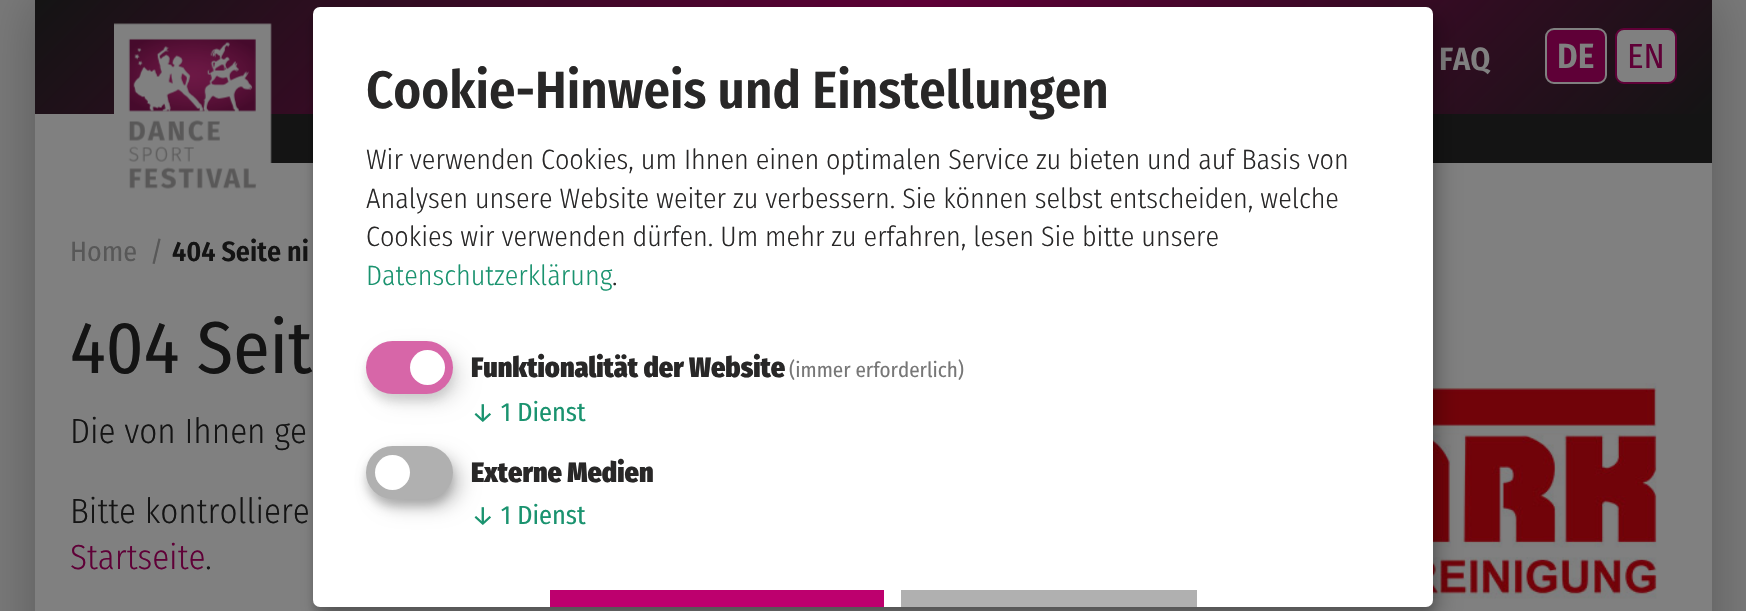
void draw(SkCanvas* c) {
SkPaint p;
p.setAntiAlias(true);
auto F=[&](const char* family, int weight, float size, bool italic = false){SkFontStyle style(weight, SkFontStyle::kNormal_Width,italic ? SkFontStyle::kItalic_Slant : SkFontStyle::kUpright_Slant);SkFont result(fontMgr->matchFamilyStyle(family, style), size);result.setSubpixel(true);return result;};
auto T=[&](const char* s, float x, float y, const SkFont& font){c->drawString(s, x, y, font, p);};
auto R=[&](float x, float y, float w, float h){c->drawRect(SkRect::MakeXYWH(x, y, w, h), p);};
auto Q=[&](float x, float y, float w, float h, float radius){c->drawRoundRect(SkRect::MakeXYWH(x, y, w, h), radius, radius, p);};
auto I=[&](const char* path, float x, float y, float w, float h){auto image = SkImages::DeferredFromEncodedData(SkData::MakeFromFileName(path));c->drawImageRect(image, SkRect::MakeXYWH(x, y, w, h), SkSamplingOptions());};
c->clear(0xff797979);
p.setColor(0x40000000);
p.setMaskFilter(SkMaskFilter::MakeBlur(kNormal_SkBlurStyle, 26));
c->drawRect(SkRect::MakeXYWH(35,0,1677,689),p);
p.setMaskFilter(nullptr);
{
const SkColor colors[] = {0xff141414,0xff5f0037,0xff141414};
const float stops[] = {0,.5,1};
const SkPoint ends[] = {{426,-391}, {1321,504}};
p.setShader(SkGradientShader::MakeLinear(ends, colors, stops, 3, SkTileMode::kClamp));
p.setAlpha(255);
}
R(35,0,1677,114);
p.setShader(nullptr);
p.setColor(0xff808080);
R(35,114,1677,497);
p.setColor(0xff141414);
R(270,114,1442,49);
I("1.png",114,23,158,166);
auto f1 = F("Fira Sans Condensed",600,32);
p.setColor(0xff808080);
T("FAQ",1439,70,f1);
p.setColor(0xff5f0037);
c->drawRoundRect(SkRect::MakeXYWH(1546,29,60,54),8,8,p);
p.setStroke(true);
p.setStrokeWidth(2);
p.setColor(0xff808080);
c->drawRoundRect(SkRect::MakeXYWH(1546,29,60,54),8,8,p);
auto f2 = F("Fira Sans Condensed",600,35);
p.setStroke(false);
T("DE",1557,68,f2);
c->drawRoundRect(SkRect::MakeXYWH(1616,29,60,54),8,8,p);
p.setStroke(true);
p.setColor(0xff5f0037);
c->drawRoundRect(SkRect::MakeXYWH(1616,29,60,54),8,8,p);
auto f3 = F("Fira Sans Condensed",400,35);
p.setStroke(false);
T("EN",1627,68,f3);
auto f4 = F("Fira Sans Condensed",400,28);
p.setColor(0xff585858);
T("Home",70,261,f4);
T("/",150,261,f4);
auto f5 = F("Fira Sans Condensed",600,28);
p.setColor(0xff141414);
T("404 Seite ni",172,261,f5);
auto f6 = F("Fira Sans Condensed",400,73.5);
T("404 Seit",70,373,f6);
auto f7 = F("Fira Sans Condensed",300,35);
T("Die von Ihnen ge",70,443,f7);
T("Bitte kontrolliere",70,523,f7);
p.setColor(0xff5f0037);
T("Startseite",70,569,f7);
p.setColor(0xff141414);
T(".",205,569,f7);
I("2.png",1433,383,224,216);
p.setColor(0x30000000);
p.setMaskFilter(SkMaskFilter::MakeBlur(kNormal_SkBlurStyle, 9));
c->drawRoundRect(SkRect::MakeXYWH(322,16,1120,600),7,7,p);
p.setMaskFilter(nullptr);
p.setColor(0x33000000);
p.setMaskFilter(SkMaskFilter::MakeBlur(kNormal_SkBlurStyle, 5));
c->drawRoundRect(SkRect::MakeXYWH(313,14,1120,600),7,7,p);
p.setMaskFilter(nullptr);
p.setColor(0xffffffff);
Q(313,7,1120,600,7);
auto f8 = F("Fira Sans Condensed",600,52.5);
p.setColor(0xff282727);
T("Cookie-Hinweis und Einstellungen",366,108,f8);
auto f9 = F("Fira Sans Condensed",300,28);
T("Wir verwenden Cookies, um Ihnen einen optimalen Service zu bieten und auf Basis von",366,169,f9);
T("Analysen unsere Website weiter zu verbessern. Sie können selbst entscheiden, welche",366,208,f9);
T("Cookies wir verwenden dürfen. Um mehr zu erfahren, lesen Sie bitte unsere",366,246,f9);
p.setColor(0xff1a936f);
T("Datenschutzerklärung",366,285,f9);
p.setColor(0xff282727);
T(".",612,285,f9);
p.setColor(0x1c000000);
p.setMaskFilter(SkMaskFilter::MakeBlur(kNormal_SkBlurStyle, 9));
c->drawRoundRect(SkRect::MakeXYWH(375,350,87,53),26.5,26.5,p);
p.setMaskFilter(nullptr);
p.setColor(0x33666666);
p.setMaskFilter(SkMaskFilter::MakeBlur(kNormal_SkBlurStyle, 5));
c->drawRoundRect(SkRect::MakeXYWH(366,348,87,53),26.5,26.5,p);
p.setMaskFilter(nullptr);
p.setColor(0xffd766a8);
Q(366,341,87,53,26.5);
p.setColor(0xffffffff);
c->drawCircle(427.5,367.5,17.5,p);
auto f10 = F("Fira Sans Condensed",900,28);
p.setColor(0xff282727);
T("Funktionalität der Website",471,377,f10);
auto f11 = F("Fira Sans Condensed",400,21);
p.setColor(0xff777777);
T("(immer erforderlich)",789,377,f11);
auto f12 = F("Fira Sans Condensed",400,26.25);
p.setColor(0xff1a936f);
T("↓ 1 Dienst",471,421,f12);
p.setColor(0x30000000);
p.setMaskFilter(SkMaskFilter::MakeBlur(kNormal_SkBlurStyle, 9));
c->drawRoundRect(SkRect::MakeXYWH(375,455,87,53),26.5,26.5,p);
p.setMaskFilter(nullptr);
p.setColor(0x33000000);
p.setMaskFilter(SkMaskFilter::MakeBlur(kNormal_SkBlurStyle, 5));
c->drawRoundRect(SkRect::MakeXYWH(366,453,87,53),26.5,26.5,p);
p.setMaskFilter(nullptr);
p.setColor(0xffb0b0b0);
Q(366,446,87,53,26.5);
p.setColor(0xffffffff);
c->drawCircle(392.5,472.5,17.5,p);
p.setColor(0xff282727);
T("Externe Medien",471,482,f10);
p.setColor(0xff1a936f);
T("↓ 1 Dienst",471,524,f12);
p.setColor(0xffbd006e);
R(550,590,334,17);
p.setColor(0xffb0b0b0);
R(901,590,296,17);
}
